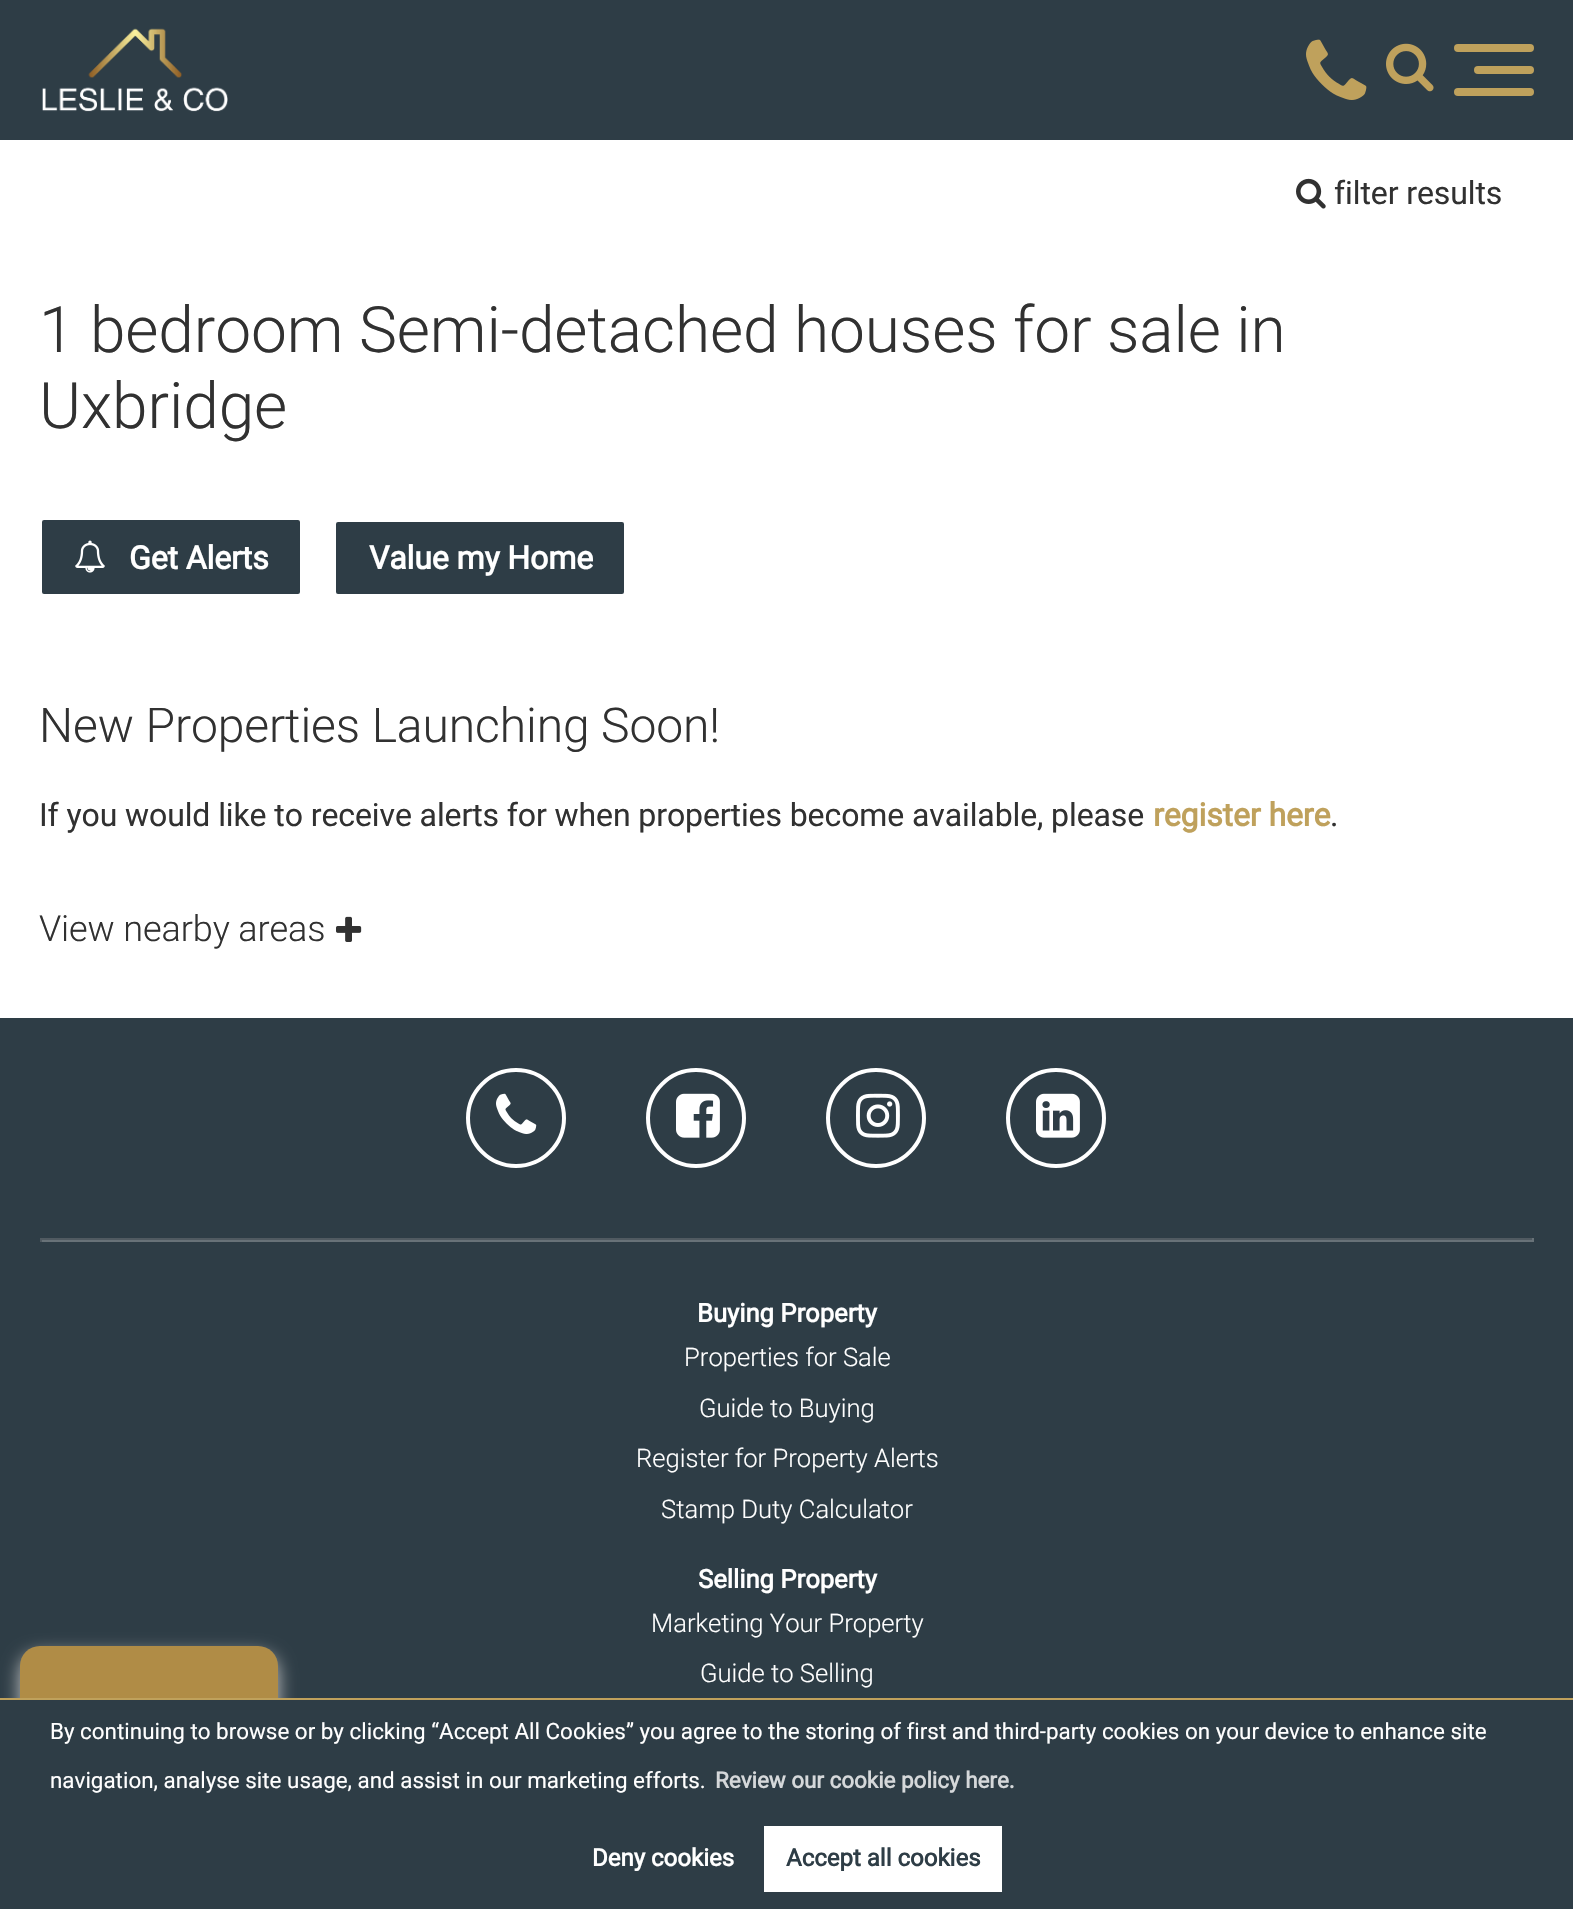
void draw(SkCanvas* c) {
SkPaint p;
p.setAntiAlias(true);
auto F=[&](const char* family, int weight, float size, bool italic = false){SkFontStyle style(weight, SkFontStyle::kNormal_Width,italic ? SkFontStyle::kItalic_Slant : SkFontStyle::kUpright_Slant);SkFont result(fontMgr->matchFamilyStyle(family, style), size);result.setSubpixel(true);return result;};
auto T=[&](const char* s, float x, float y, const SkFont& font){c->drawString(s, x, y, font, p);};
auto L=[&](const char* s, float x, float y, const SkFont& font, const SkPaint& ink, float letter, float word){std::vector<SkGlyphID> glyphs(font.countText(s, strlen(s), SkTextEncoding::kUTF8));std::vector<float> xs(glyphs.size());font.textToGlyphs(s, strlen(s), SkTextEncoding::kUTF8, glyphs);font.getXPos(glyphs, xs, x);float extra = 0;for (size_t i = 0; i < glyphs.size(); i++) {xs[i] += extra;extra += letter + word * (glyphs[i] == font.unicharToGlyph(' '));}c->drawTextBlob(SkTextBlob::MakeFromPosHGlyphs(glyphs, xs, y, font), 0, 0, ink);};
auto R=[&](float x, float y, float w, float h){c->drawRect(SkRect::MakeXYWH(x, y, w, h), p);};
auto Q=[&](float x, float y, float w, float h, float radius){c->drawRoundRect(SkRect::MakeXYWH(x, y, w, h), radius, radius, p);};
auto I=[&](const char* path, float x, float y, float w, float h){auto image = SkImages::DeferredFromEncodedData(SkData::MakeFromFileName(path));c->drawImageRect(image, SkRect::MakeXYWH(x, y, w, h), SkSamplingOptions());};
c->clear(0xffffffff);
p.setColor(0xff2e3d46);
R(0,0,1573,140);
I("1.png",42,28,186,84);
I("2.png",1306,39,61,61);
I("3.png",1386,43,48,49);
p.setColor(0xffbfa15c);
Q(1474,66,60,8,4);
Q(1454,44,80,8,4);
Q(1454,88,80,8,4);
I("4.png",1296,178,30,31);
auto f1 = F("Roboto",400,32);
p.setColor(0xff313131);
L("filter results",1334,204,f1,p,-.1,0);
auto f2 = F("Roboto",300,64);
L("1 bedroom Semi-detached houses for sale in",39,352,f2,p,-.1,0);
L("Uxbridge",39,428,f2,p,-.1,0);
p.setColor(0xff2e3d46);
c->drawRoundRect(SkRect::MakeXYWH(41,519,260,76),3,3,p);
p.setStroke(true);
p.setStrokeWidth(2);
p.setColor(0xffffffff);
c->drawRoundRect(SkRect::MakeXYWH(41,519,260,76),3,3,p);
I("5.png",75,540,30,33);
auto f3 = F("Roboto",700,32);
p.setStroke(false);
L("Get Alerts",129,569,f3,p,-.1,0);
p.setColor(0xff2e3d46);
c->drawRoundRect(SkRect::MakeXYWH(335,521,290,74),3,3,p);
p.setStroke(true);
p.setColor(0xffffffff);
c->drawRoundRect(SkRect::MakeXYWH(335,521,290,74),3,3,p);
p.setStroke(false);
L("Value my Home",369,569,f3,p,-.1,0);
auto f4 = F("Roboto",300,48);
p.setColor(0xff313131);
L("New Properties Launching Soon!",39,742,f4,p,-.1,0);
L("If you would like to receive alerts for when properties become available, please",39,826,f1,p,-.1,0);
p.setColor(0xffbfa15c);
L("register here",1153,826,f3,p,-.1,0);
p.setColor(0xff313131);
L(".",1330,826,f1,p,-.1,0);
auto f5 = F("Roboto",300,36);
L("View nearby areas",39,941,f5,p,-.1,0);
I("6.png",336,916,26,26);
p.setColor(0xff2e3d46);
R(0,1018,1573,680);
p.setStroke(true);
p.setStrokeWidth(4);
p.setColor(0xffffffff);
c->drawCircle(516,1118,48,p);
I("7.png",496,1093,41,41);
c->drawCircle(696,1118,48,p);
I("8.png",676,1093,44,45);
c->drawCircle(876,1118,48,p);
I("9.png",856,1093,44,45);
c->drawCircle(1056,1118,48,p);
I("10.png",1036,1093,44,45);
p.setStroke(false);
p.setColor(0xff505a61);
R(40,1238,1494,2);
p.setColor(0xff687278);
R(1532,1238,2,4);
R(40,1240,1494,2);
p.setColor(0xff505a61);
R(40,1238,2,4);
auto f6 = F("Roboto",700,25.6);
p.setColor(0xffffffff);
T("Buying Property",697,1322,f6);
auto f7 = F("Roboto",300,25.6);
T("Properties for Sale",684,1366,f7);
T("Guide to Buying",699,1417,f7);
T("Register for Property Alerts",636,1467,f7);
T("Stamp Duty Calculator",661,1518,f7);
T("Selling Property",698,1588,f6);
T("Marketing Your Property",651,1632,f7);
T("Guide to Selling",700,1682,f7);
p.setColor(0xffc4c4c4);
p.setMaskFilter(SkMaskFilter::MakeBlur(kNormal_SkBlurStyle, 9));
c->drawRoundRect(SkRect::MakeXYWH(20,1654,258,244),20,20,p);
p.setMaskFilter(nullptr);
p.setColor(0xffb08c46);
Q(20,1646,258,244,20);
p.setColor(0xff2e3d46);
R(0,1700,1573,209);
p.setColor(0xffbfa15c);
R(0,1698,1573,2);
auto f8 = F("Roboto",400,22.4);
p.setColor(0xffffffff);
T("By continuing to browse or by clicking “Accept All Cookies” you agree to the storing of first and third-party cookies on your device to enhance site",50,1739,f8);
T("navigation, analyse site usage, and assist in our marketing efforts.",50,1788,f8);
auto f9 = F("Roboto",700,22.4);
p.setColor(0xffd5d8da);
T("Review our cookie policy here.",715,1788,f9);
auto f10 = F("Roboto",700,24);
p.setColor(0xffffffff);
T("Deny cookies",592,1866,f10);
R(764,1826,238,66);
p.setColor(0xff2e3d46);
T("Accept all cookies",786,1866,f10);
}
